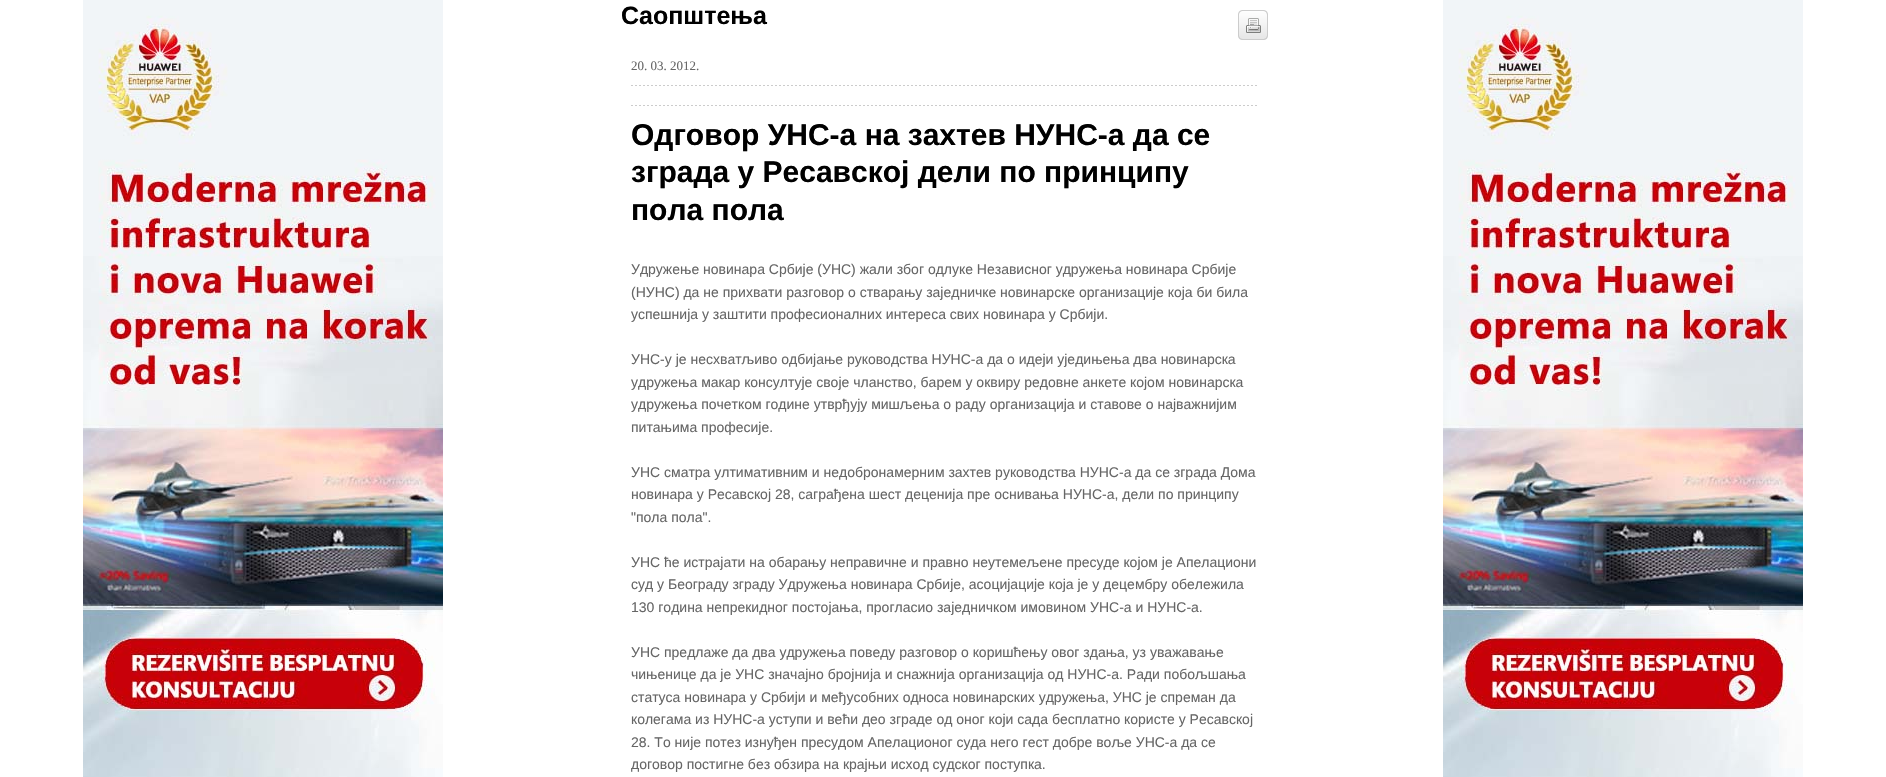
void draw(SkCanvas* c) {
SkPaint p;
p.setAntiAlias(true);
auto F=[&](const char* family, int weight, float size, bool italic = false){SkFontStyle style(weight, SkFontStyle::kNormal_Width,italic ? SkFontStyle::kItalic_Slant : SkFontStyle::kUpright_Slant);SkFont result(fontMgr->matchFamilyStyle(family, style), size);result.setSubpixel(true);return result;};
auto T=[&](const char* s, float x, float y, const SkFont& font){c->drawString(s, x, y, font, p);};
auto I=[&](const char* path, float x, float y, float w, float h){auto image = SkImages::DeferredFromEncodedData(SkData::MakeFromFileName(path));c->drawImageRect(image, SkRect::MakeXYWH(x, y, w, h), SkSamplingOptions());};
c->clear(0xffffffff);
I("1.png",83,0,360,777);
auto f1 = F("Liberation Sans",700,25);
p.setColor(0xff000000);
T("Саопштења",621,24,f1);
I("2.png",1238,10,30,30);
I("3.png",631,85,626,1);
auto f2 = F("Liberation Serif",400,13);
p.setColor(0xff666666);
T("20. 03. 2012.",631,70,f2);
I("3.png",631,105,626,1);
auto f3 = F("Liberation Sans",700,30);
p.setColor(0xff000000);
T("Одговор УНС-а на захтев НУНС-а да се",631,145,f3);
T("зграда у Ресавској дели по принципу",631,182,f3);
T("пола пола",631,220,f3);
auto f4 = F("Liberation Sans",400,14);
p.setColor(0xff666666);
T("Удружење новинара Србије (УНС) жали због одлуке Независног удружења новинара Србије",631,274,f4);
T("(НУНС) да не прихвати разговор о стварању заједничке новинарске организације која би била",631,297,f4);
T("успешнија у заштити професионалних интереса свих новинара у Србији.",631,319,f4);
T("УНС-у је несхватљиво одбијање руководства НУНС-а да о идеји уједињења два новинарска",631,364,f4);
T("удружења макар консултује своје чланство, барем у оквиру редовне анкете којом новинарска",631,387,f4);
T("удружења почетком године утврђују мишљења о раду организација и ставове о најважнијим",631,409,f4);
T("питањима професије.",631,432,f4);
T("УНС сматра ултимативним и недобронамерним захтев руководства НУНС-а да се зграда Дома",631,477,f4);
T("новинара у Ресавској 28, саграђена шест деценија пре оснивања НУНС-а, дели по принципу",631,499,f4);
T("\"пола пола\".",631,522,f4);
T("УНС ће истрајати на обарању неправичне и правно неутемељене пресуде којом је Апелациони",631,567,f4);
T("суд у Београду зграду Удружења новинара Србије, асоцијације која је у децембру обележила",631,589,f4);
T("130 година непрекидног постојања, прогласио заједничком имовином УНС-а и НУНС-а.",631,612,f4);
T("УНС предлаже да два удружења поведу разговор о коришћењу овог здања, уз уважавање",631,657,f4);
T("чињенице да је УНС значајно бројнија и снажнија организација од НУНС-а. Ради побољшања",631,679,f4);
T("статуса новинара у Србији и међусобних односа новинарских удружења, УНС је спреман да",631,702,f4);
T("колегама из НУНС-а уступи и већи део зграде од оног који сада бесплатно користе у Ресавској",631,724,f4);
T("28. То није потез изнуђен пресудом Апелационог суда него гест добре воље УНС-а да се",631,747,f4);
T("договор постигне без обзира на крајњи исход судског поступка.",631,769,f4);
I("1.png",1443,0,360,777);
}
